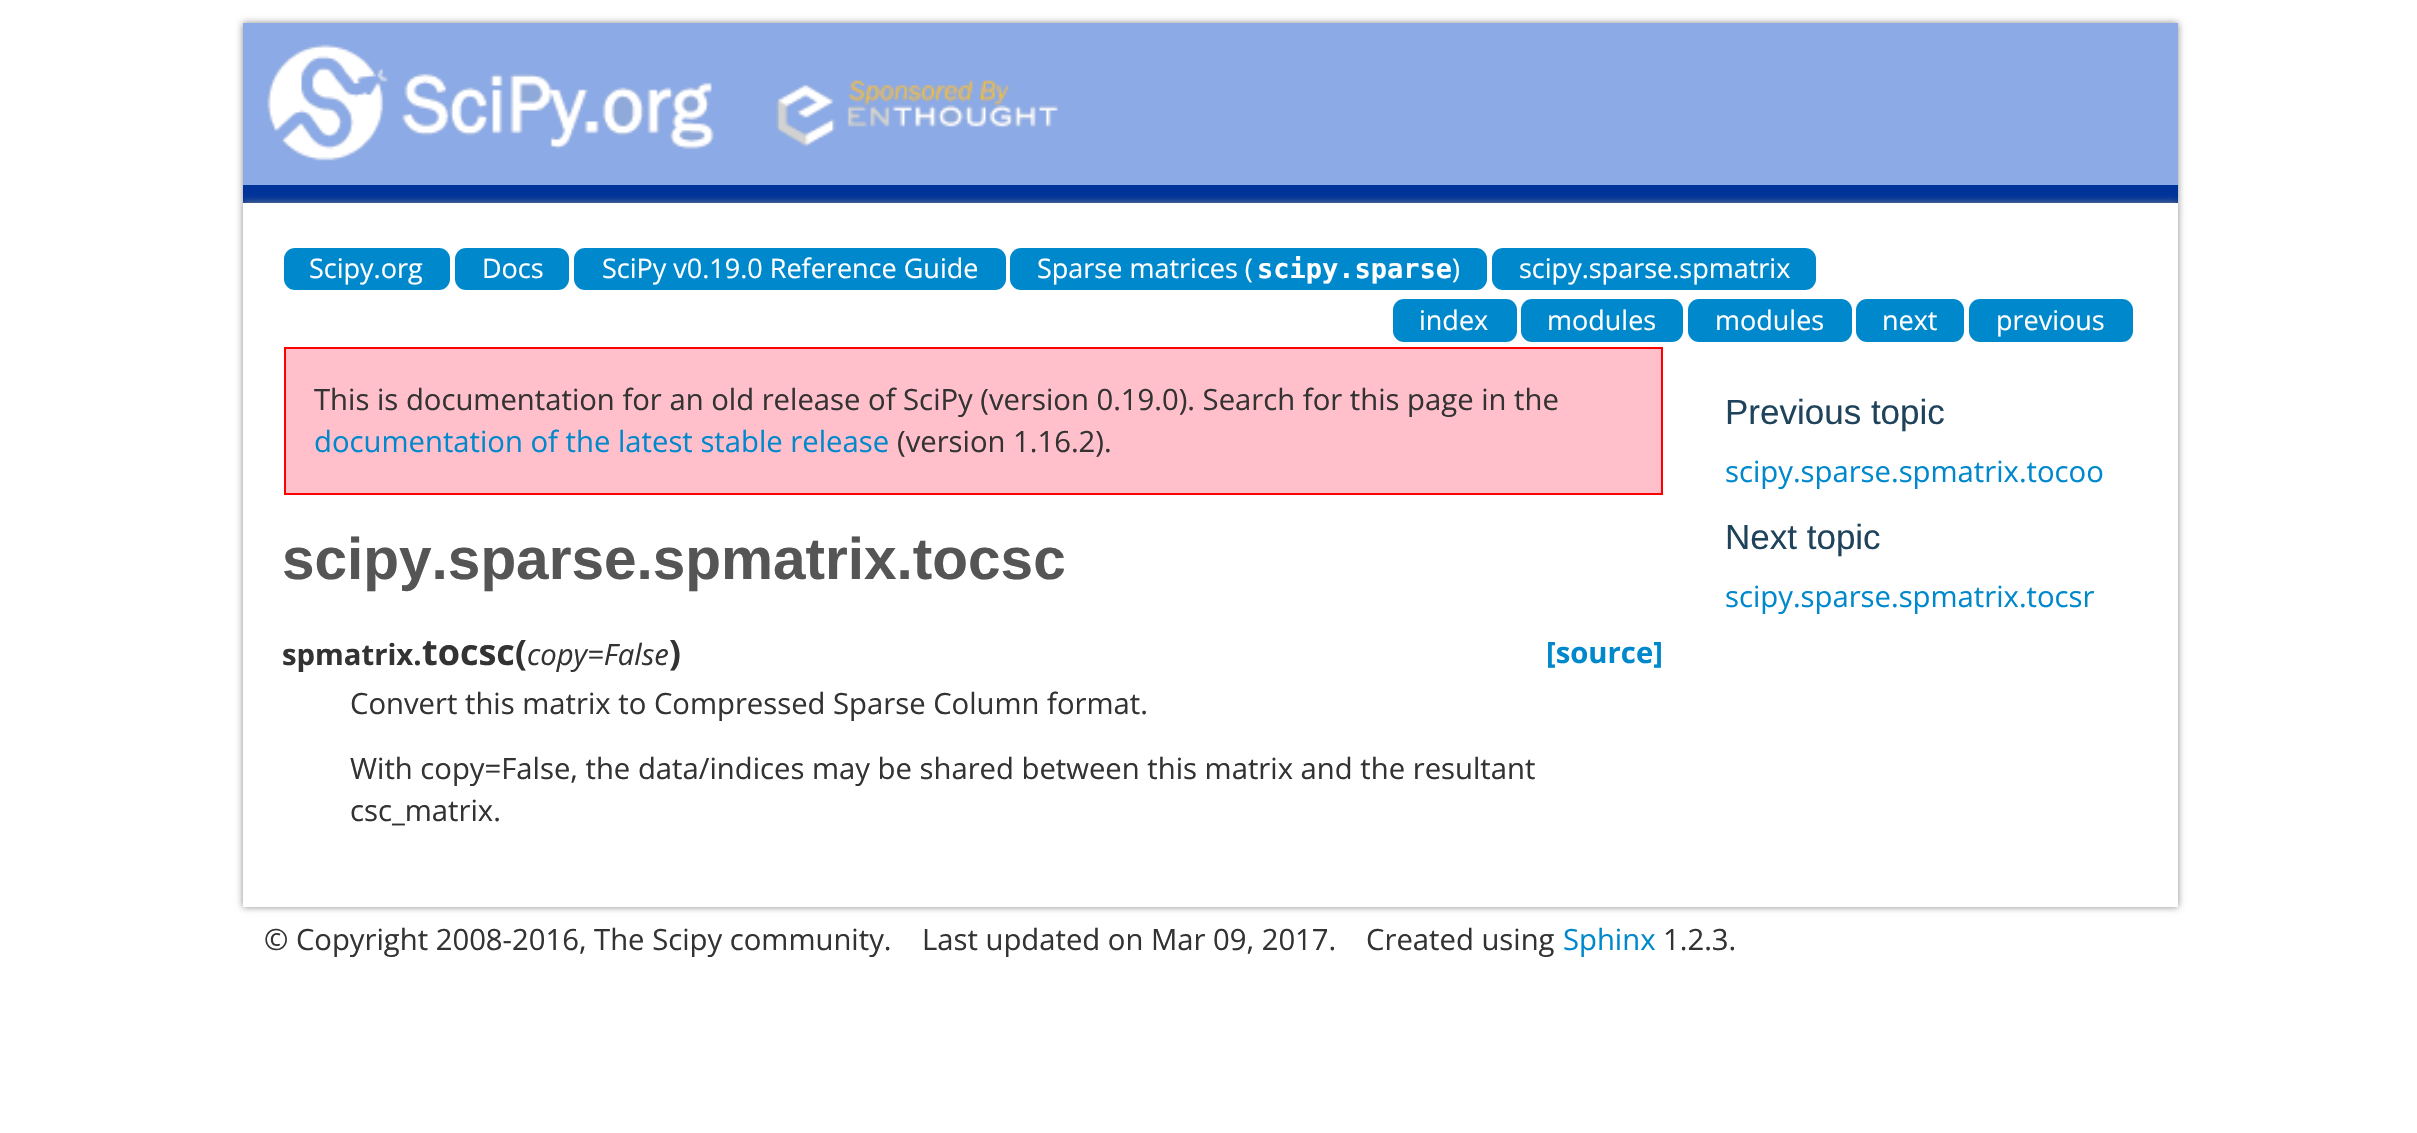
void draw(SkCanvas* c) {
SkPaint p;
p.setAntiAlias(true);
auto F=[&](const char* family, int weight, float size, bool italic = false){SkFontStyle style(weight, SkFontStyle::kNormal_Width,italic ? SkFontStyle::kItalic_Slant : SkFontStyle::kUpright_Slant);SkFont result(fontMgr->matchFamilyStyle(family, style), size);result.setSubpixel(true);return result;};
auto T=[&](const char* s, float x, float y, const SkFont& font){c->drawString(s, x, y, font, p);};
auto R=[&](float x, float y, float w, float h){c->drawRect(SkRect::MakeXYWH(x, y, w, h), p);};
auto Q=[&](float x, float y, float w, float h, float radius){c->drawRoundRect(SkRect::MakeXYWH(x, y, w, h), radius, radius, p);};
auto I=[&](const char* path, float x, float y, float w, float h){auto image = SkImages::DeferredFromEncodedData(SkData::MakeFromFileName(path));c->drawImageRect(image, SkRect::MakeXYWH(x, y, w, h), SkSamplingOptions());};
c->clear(0xffffffff);
p.setColor(0xff888888);
p.setMaskFilter(SkMaskFilter::MakeBlur(kNormal_SkBlurStyle, 3.5));
c->drawRect(SkRect::MakeXYWH(243,23,1935,180),p);
p.setMaskFilter(nullptr);
p.setColor(0xff8caae6);
R(243,23,1935,162);
p.setColor(0xff003399);
R(243,185,1935,18);
I("1.png",267,44,791,117);
p.setColor(0xff888888);
p.setMaskFilter(SkMaskFilter::MakeBlur(kNormal_SkBlurStyle, 3.5));
c->drawRect(SkRect::MakeXYWH(243,203,1935,704),p);
p.setMaskFilter(nullptr);
p.setColor(0xffffffff);
R(243,203,1935,704);
p.setColor(0xff0088cc);
Q(284,248,166,42,11);
auto f1 = F("Open Sans",400,27);
p.setColor(0xffffffff);
T("Scipy.org",309,278,f1);
p.setColor(0xff0088cc);
Q(455,248,114,42,11);
p.setColor(0xffffffff);
T("Docs",482,278,f1);
p.setColor(0xff0088cc);
Q(574,248,432,42,11);
p.setColor(0xffffffff);
T("SciPy v0.19.0 Reference Guide",602,278,f1);
p.setColor(0xff0088cc);
Q(1010,248,477,42,11);
p.setColor(0xffffffff);
T("Sparse matrices (",1037,278,f1);
auto f2 = F("DejaVu Sans Mono",700,27);
T("scipy.sparse",1257,278,f2);
T(")",1452,278,f1);
p.setColor(0xff0088cc);
Q(1492,248,324,42,11);
p.setColor(0xffffffff);
T("scipy.sparse.spmatrix",1519,278,f1);
p.setColor(0xff0088cc);
Q(1393,299,124,43,11);
p.setColor(0xffffffff);
T("index",1419,330,f1);
p.setColor(0xff0088cc);
Q(1521,299,162,43,11);
p.setColor(0xffffffff);
T("modules",1547,330,f1);
p.setColor(0xff0088cc);
Q(1688,299,164,43,11);
p.setColor(0xffffffff);
T("modules",1715,330,f1);
p.setColor(0xff0088cc);
Q(1856,299,108,43,11);
p.setColor(0xffffffff);
T("next",1882,330,f1);
p.setColor(0xff0088cc);
Q(1969,299,164,43,11);
p.setColor(0xffffffff);
T("previous",1996,330,f1);
p.setColor(0xffffc0cb);
c->drawRect(SkRect::MakeXYWH(285,348,1377,146),p);
p.setStroke(true);
p.setStrokeWidth(2);
p.setColor(0xffff0000);
c->drawRect(SkRect::MakeXYWH(285,348,1377,146),p);
auto f3 = F("Open Sans",400,29.25);
p.setStroke(false);
p.setColor(0xff333333);
T("This is documentation for an old release of SciPy (version 0.19.0). Search for this page in the",314,410,f3);
p.setColor(0xff0088cc);
T("documentation of the latest stable release",314,452,f3);
p.setColor(0xff333333);
T("(version 1.16.2).",897,452,f3);
auto f4 = F("Liberation Sans",700,58.5);
p.setColor(0xff555555);
T("scipy.sparse.spmatrix.tocsc",282,579,f4);
auto f5 = F("Open Sans",700,29.25);
p.setColor(0xff333333);
T("spmatrix.",282,665,f5);
auto f6 = F("Open Sans",700,36);
T("tocsc",422,665,f6);
auto f7 = F("Open Sans",700,35);
T("(",515,665,f7);
auto f8 = F("Open Sans",400,29.25,true);
T("copy=False",527,665,f8);
T(")",669,665,f7);
p.setColor(0xff0088cc);
T("[source]",1546,663,f5);
p.setColor(0xff333333);
T("Convert this matrix to Compressed Sparse Column format.",350,714,f3);
T("With copy=False, the data/indices may be shared between this matrix and the resultant",350,779,f3);
T("csc_matrix.",350,821,f3);
auto f9 = F("Liberation Sans",400,35);
p.setColor(0xff20435c);
T("Previous topic",1725,424,f9);
p.setColor(0xff0088cc);
T("scipy.sparse.spmatrix.tocoo",1725,482,f3);
p.setColor(0xff20435c);
T("Next topic",1725,549,f9);
p.setColor(0xff0088cc);
T("scipy.sparse.spmatrix.tocsr",1725,607,f3);
p.setColor(0xff333333);
T("© Copyright 2008-2016, The Scipy community.",264,950,f3);
T("Last updated on Mar 09, 2017.",922,950,f3);
T("Created using",1366,950,f3);
p.setColor(0xff0088cc);
T("Sphinx",1563,950,f3);
p.setColor(0xff333333);
T("1.2.3.",1663,950,f3);
}
